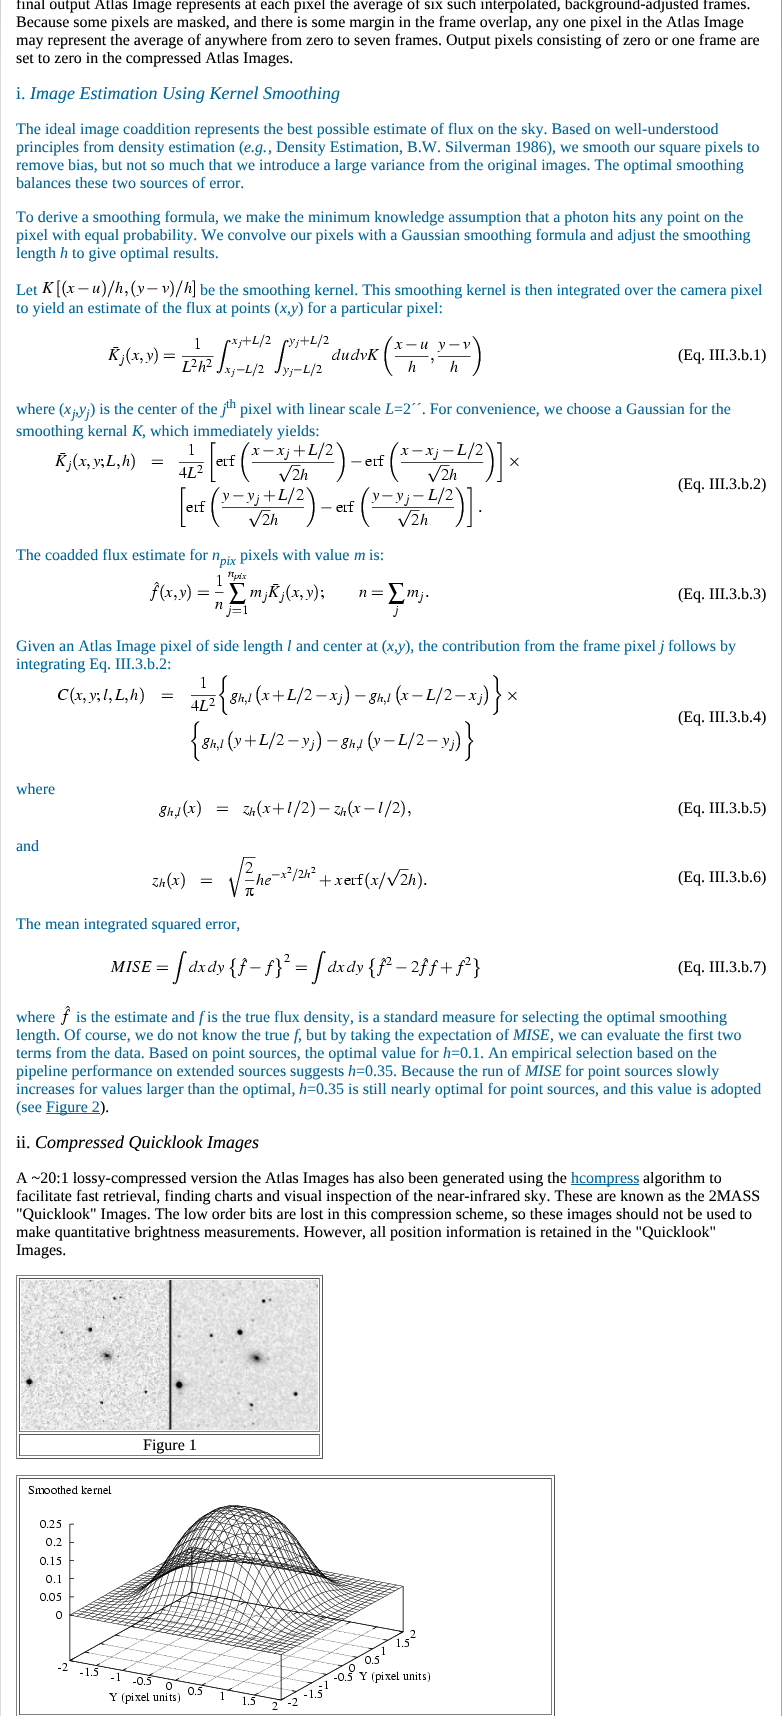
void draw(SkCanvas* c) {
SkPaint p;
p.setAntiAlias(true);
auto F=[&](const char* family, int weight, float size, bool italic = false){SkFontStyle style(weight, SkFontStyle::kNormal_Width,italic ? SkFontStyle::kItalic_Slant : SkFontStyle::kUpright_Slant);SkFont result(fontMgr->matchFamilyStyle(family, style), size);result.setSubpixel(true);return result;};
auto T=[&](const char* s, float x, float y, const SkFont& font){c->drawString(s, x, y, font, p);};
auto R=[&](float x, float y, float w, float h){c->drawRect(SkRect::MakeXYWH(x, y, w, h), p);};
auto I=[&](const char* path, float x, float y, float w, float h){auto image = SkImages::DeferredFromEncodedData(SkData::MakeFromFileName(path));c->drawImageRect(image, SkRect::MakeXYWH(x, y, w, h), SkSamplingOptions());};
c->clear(0xffeeeeee);
I("1.png",0,0,782,71);
p.setColor(0xff888888);
p.setMaskFilter(SkMaskFilter::MakeBlur(kNormal_SkBlurStyle, 2.5));
c->drawRect(SkRect::MakeXYWH(3,-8,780,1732),p);
p.setMaskFilter(nullptr);
p.setColor(0xffffffff);
R(1,0,780,1716);
auto f1 = F("Liberation Serif",400,16);
p.setColor(0xff000000);
T("final output Atlas Image represents at each pixel the average of six such interpolated, background-adjusted frames.",16,9,f1);
T("Because some pixels are masked, and there is some margin in the frame overlap, any one pixel in the Atlas Image",16,27,f1);
T("may represent the average of anywhere from zero to seven frames. Output pixels consisting of zero or one frame are",16,45,f1);
T("set to zero in the compressed Atlas Images.",16,63,f1);
auto f2 = F("Liberation Serif",400,18);
p.setColor(0xff006699);
T("i.",16,99,f2);
auto f3 = F("Liberation Serif",400,18,true);
T("Image Estimation Using Kernel Smoothing",30,99,f3);
T("The ideal image coaddition represents the best possible estimate of flux on the sky. Based on well-understood",16,134,f1);
T("principles from density estimation (",16,152,f1);
auto f4 = F("Liberation Serif",400,16,true);
T("e.g.",244,152,f4);
T(", Density Estimation, B.W. Silverman 1986), we smooth our square pixels to",268,152,f1);
T("remove bias, but not so much that we introduce a large variance from the original images. The optimal smoothing",16,170,f1);
T("balances these two sources of error.",16,188,f1);
T("To derive a smoothing formula, we make the minimum knowledge assumption that a photon hits any point on the",16,222,f1);
T("pixel with equal probability. We convolve our pixels with a Gaussian smoothing formula and adjust the smoothing",16,240,f1);
T("length",16,258,f1);
T("h",60,258,f4);
T("to give optimal results.",72,258,f1);
T("Let",16,295,f1);
I("2.png",42,280,153,18);
T("be the smoothing kernel. This smoothing kernel is then integrated over the camera pixel",200,295,f1);
T("to yield an estimate of the flux at points (",16,313,f1);
T("x,y",280,313,f4);
T(") for a particular pixel:",298,313,f1);
I("3.png",108,334,373,43);
p.setColor(0xff000000);
T("(Eq. III.3.b.1)",678,360,f1);
p.setColor(0xff006699);
T("where (",16,414,f1);
T("x ,y",64,414,f4);
T(") is the center of the",90,414,f1);
T("j",222,414,f4);
auto f5 = F("Liberation Serif",400,13);
T("th",226,408,f5);
T("pixel with linear scale",240,414,f1);
T("L",385,414,f4);
T("=2´´. For convenience, we choose a Gaussian for the",394,414,f1);
auto f6 = F("Liberation Serif",400,13,true);
T("j",72,418,f6);
T("j",86,418,f6);
T("smoothing kernal",16,436,f1);
T("K",132,436,f4);
T(", which immediately yields:",142,436,f1);
I("4.png",55,442,464,85);
p.setColor(0xff000000);
T("(Eq. III.3.b.2)",678,489,f1);
p.setColor(0xff006699);
T("The coadded flux estimate for",16,560,f1);
T("n",212,560,f4);
T("pix",220,565,f6);
T("pixels with value",240,560,f1);
T("m",354,560,f4);
T("is:",369,560,f1);
I("5.png",150,571,279,46);
p.setColor(0xff000000);
T("(Eq. III.3.b.3)",678,599,f1);
p.setColor(0xff006699);
T("Given an Atlas Image pixel of side length",16,651,f1);
T("l",287,651,f4);
T("and center at (",296,651,f1);
T("x,y",387,651,f4);
T("), the contribution from the frame pixel",405,651,f1);
T("j",660,651,f4);
T("follows by",668,651,f1);
T("integrating Eq. III.3.b.2:",16,669,f1);
I("6.png",58,675,459,86);
p.setColor(0xff000000);
T("(Eq. III.3.b.4)",678,722,f1);
p.setColor(0xff006699);
T("where",16,794,f1);
I("7.png",159,800,252,19);
p.setColor(0xff000000);
T("(Eq. III.3.b.5)",678,813,f1);
p.setColor(0xff006699);
T("and",16,851,f1);
I("8.png",152,857,275,41);
p.setColor(0xff000000);
T("(Eq. III.3.b.6)",678,882,f1);
p.setColor(0xff006699);
T("The mean integrated squared error,",16,929,f1);
I("9.png",110,951,370,34);
p.setColor(0xff000000);
T("(Eq. III.3.b.7)",678,972,f1);
p.setColor(0xff006699);
T("where",16,1022,f1);
I("10.png",61,1006,10,19);
T("is the estimate and",76,1022,f1);
T("f",199,1022,f4);
T("is the true flux density, is a standard measure for selecting the optimal smoothing",207,1022,f1);
T("length. Of course, we do not know the true",16,1040,f1);
T("f",294,1040,f4);
T(", but by taking the expectation of",298,1040,f1);
T("MISE",513,1040,f4);
T(", we can evaluate the first two",550,1040,f1);
T("terms from the data. Based on point sources, the optimal value for",16,1058,f1);
T("h",443,1058,f4);
T("=0.1. An empirical selection based on the",451,1058,f1);
T("pipeline performance on extended sources suggests",16,1076,f1);
T("h",348,1076,f4);
T("=0.35. Because the run of",356,1076,f1);
T("MISE",525,1076,f4);
T("for point sources slowly",565,1076,f1);
T("increases for values larger than the optimal,",16,1094,f1);
T("h",299,1094,f4);
T("=0.35 is still nearly optimal for point sources, and this value is adopted",307,1094,f1);
T("(see",16,1112,f1);
R(46,1113,54,1);
T("Figure 2",46,1112,f1);
p.setColor(0xff000000);
T(").",100,1112,f1);
T("ii.",16,1148,f2);
T("Compressed Quicklook Images",35,1148,f3);
T("A ~20:1 lossy-compressed version the Atlas Images has also been generated using the",16,1183,f1);
p.setColor(0xff006699);
R(571,1184,68,1);
T("hcompress",571,1183,f1);
p.setColor(0xff000000);
T("algorithm to",643,1183,f1);
T("facilitate fast retrieval, finding charts and visual inspection of the near-infrared sky. These are known as the 2MASS",16,1201,f1);
T("\"Quicklook\" Images. The low order bits are lost in this compression scheme, so these images should not be used to",16,1219,f1);
T("make quantitative brightness measurements. However, all position information is retained in the \"Quicklook\"",16,1237,f1);
T("Images.",16,1255,f1);
p.setColor(0xff808080);
R(16,1275,307,1);
p.setColor(0xff555555);
R(322,1275,1,184);
R(16,1458,307,1);
p.setColor(0xff808080);
R(16,1275,1,184);
p.setColor(0xff555555);
R(19,1278,301,1);
p.setColor(0xff808080);
R(319,1278,1,154);
R(19,1431,301,1);
p.setColor(0xff555555);
R(19,1278,1,154);
I("11.png",21,1280,297,150);
R(19,1434,301,1);
p.setColor(0xff808080);
R(319,1434,1,22);
R(19,1455,301,1);
p.setColor(0xff555555);
R(19,1434,1,22);
p.setColor(0xff000000);
T("Figure 1",143,1450,f1);
p.setColor(0xff808080);
R(16,1475,539,1);
p.setColor(0xff555555);
R(554,1475,1,241);
p.setColor(0xff808080);
R(16,1475,1,241);
p.setColor(0xff555555);
R(19,1478,533,1);
p.setColor(0xff808080);
R(551,1478,1,237);
R(19,1714,533,1);
p.setColor(0xff555555);
R(19,1478,1,237);
I("12.png",28,1485,402,225);
}
